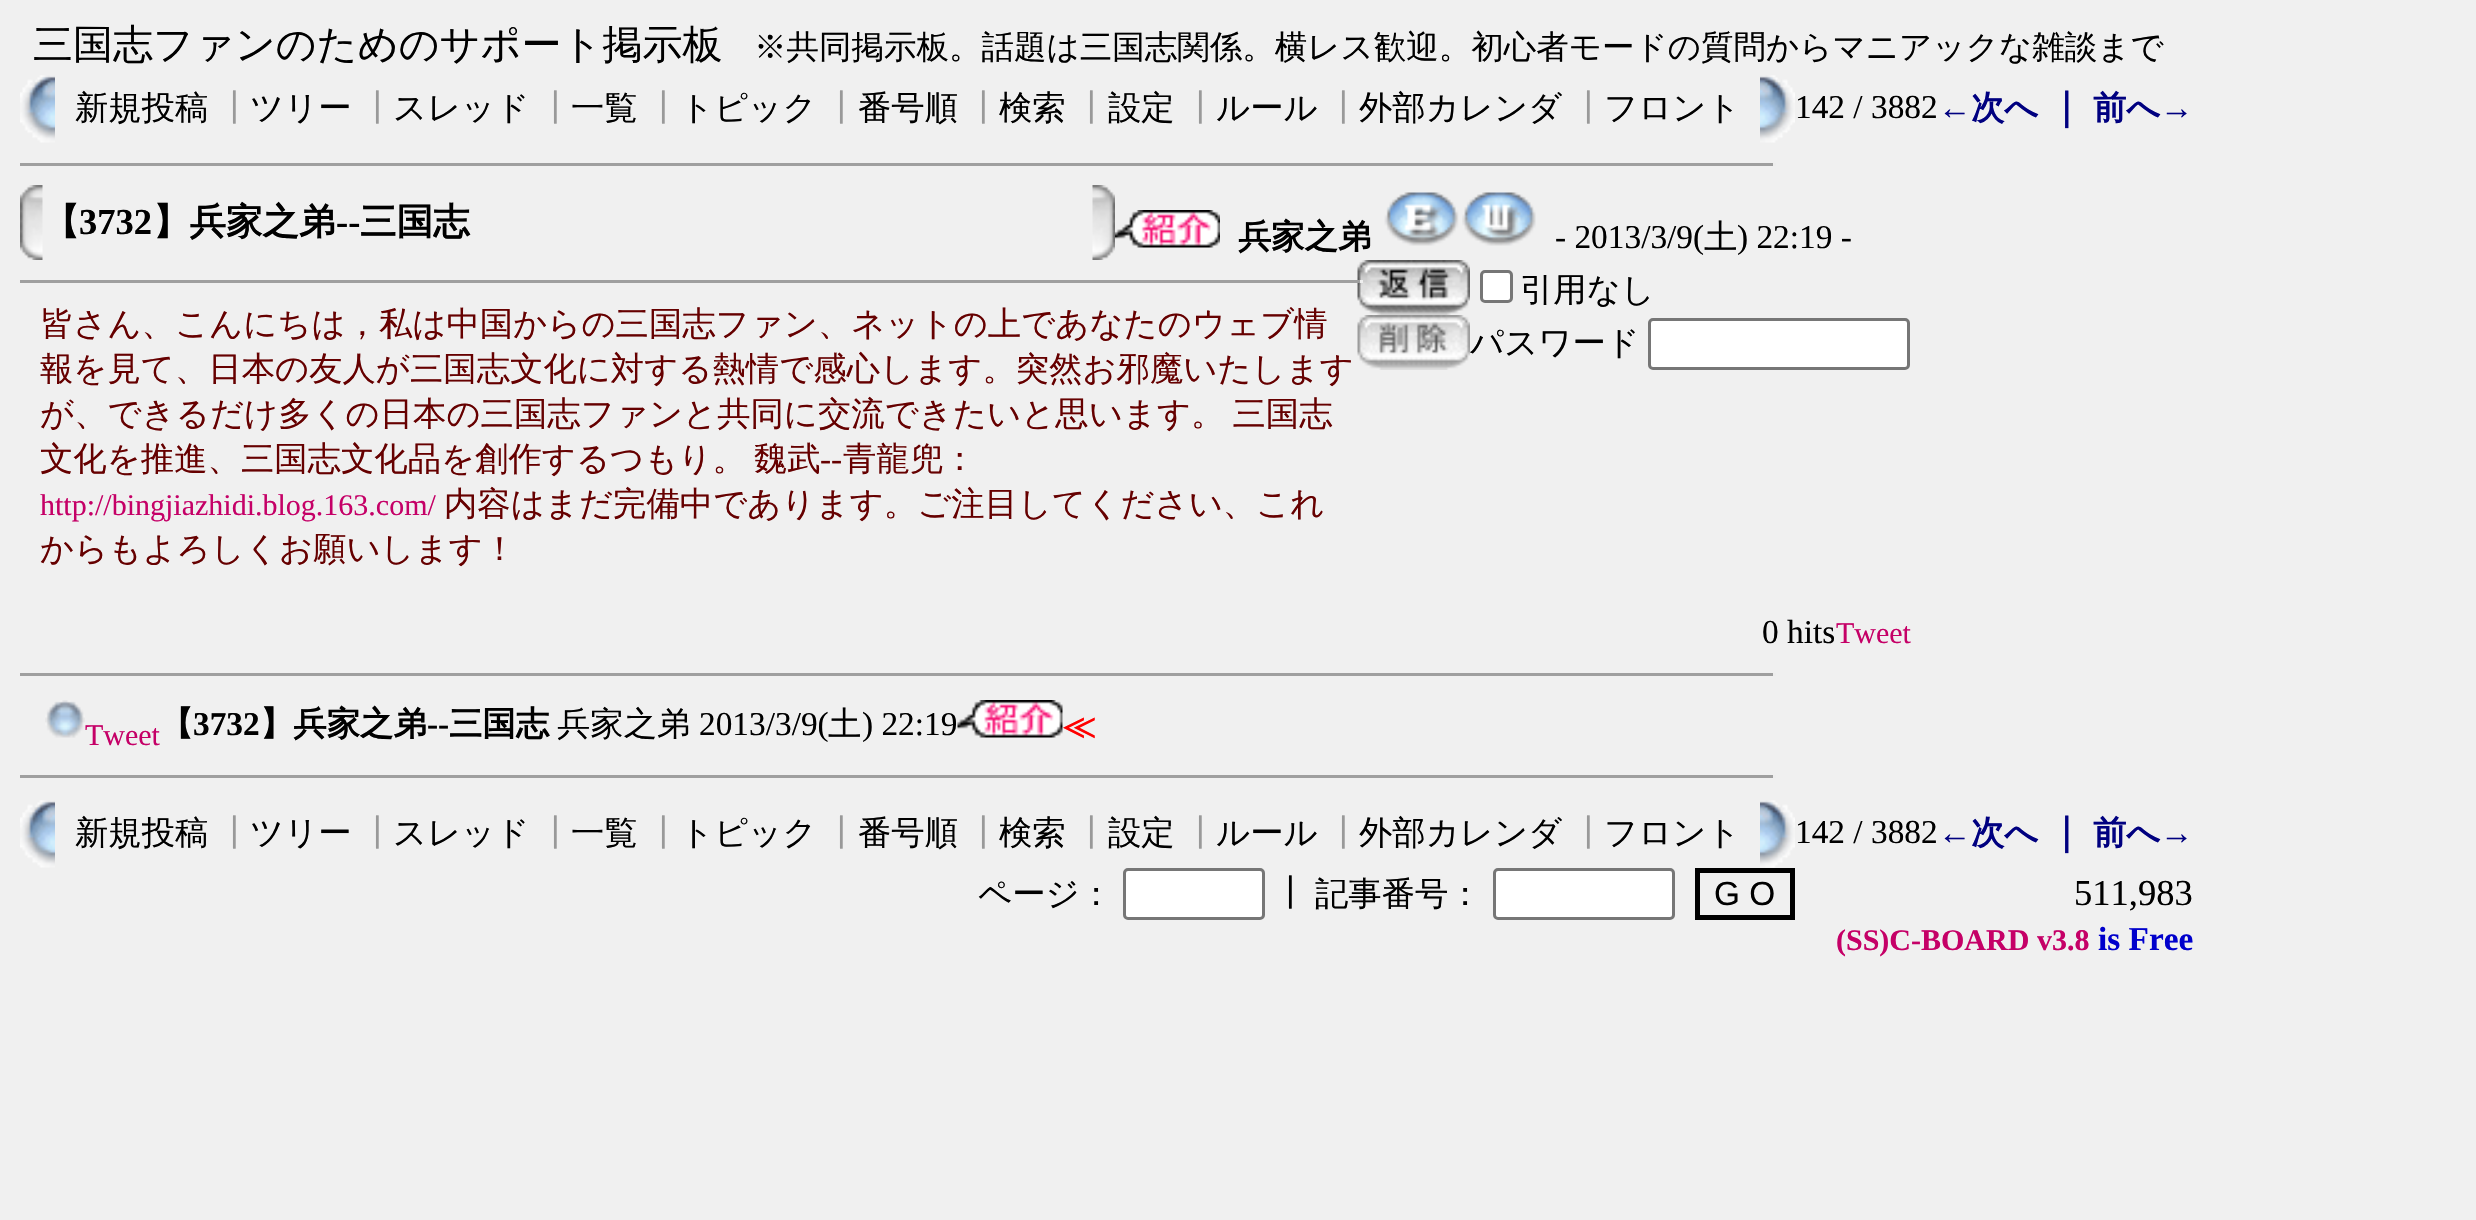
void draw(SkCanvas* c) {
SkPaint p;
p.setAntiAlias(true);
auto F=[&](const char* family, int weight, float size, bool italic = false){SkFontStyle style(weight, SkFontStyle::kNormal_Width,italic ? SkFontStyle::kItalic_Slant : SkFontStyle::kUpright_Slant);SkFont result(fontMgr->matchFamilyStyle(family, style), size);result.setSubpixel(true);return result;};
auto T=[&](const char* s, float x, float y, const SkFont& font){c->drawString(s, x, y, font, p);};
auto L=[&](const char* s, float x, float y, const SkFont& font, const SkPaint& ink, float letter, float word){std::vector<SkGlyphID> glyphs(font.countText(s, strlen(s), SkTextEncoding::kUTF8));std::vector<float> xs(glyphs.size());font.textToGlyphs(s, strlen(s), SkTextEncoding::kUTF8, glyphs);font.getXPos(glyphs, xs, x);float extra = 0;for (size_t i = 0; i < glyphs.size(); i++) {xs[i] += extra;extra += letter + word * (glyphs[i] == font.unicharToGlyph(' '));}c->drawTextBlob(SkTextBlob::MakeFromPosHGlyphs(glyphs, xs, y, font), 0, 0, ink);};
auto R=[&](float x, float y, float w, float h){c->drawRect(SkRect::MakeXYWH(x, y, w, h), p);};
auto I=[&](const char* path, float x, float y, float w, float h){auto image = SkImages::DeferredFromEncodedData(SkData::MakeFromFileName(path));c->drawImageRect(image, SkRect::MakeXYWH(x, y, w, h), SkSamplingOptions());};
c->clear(0xfff0f0f0);
auto f1 = F("WenQuanYi Zen Hei",500,40);
p.setColor(0xff000000);
T("三国志ファンのためのサポート掲示板",33,58,f1);
auto f2 = F("WenQuanYi Zen Hei",500,32.5);
T("※共同掲示板。話題は三国志関係。横レス歓迎。初心者モードの質問からマニアックな雑談まで",754,58,f2);
I("1.png",20,75,35,68);
auto f3 = F("WenQuanYi Zen Hei",500,33.35);
T("新規投稿",75,119,f3);
p.setColor(0xff999999);
T("┃",217,119,f3);
p.setColor(0xff000000);
T("ツリー",250,119,f3);
p.setColor(0xff999999);
T("┃",360,119,f3);
p.setColor(0xff000000);
T("スレッド",393,119,f3);
p.setColor(0xff999999);
T("┃",538,119,f3);
p.setColor(0xff000000);
T("一覧",571,119,f3);
p.setColor(0xff999999);
T("┃",646,119,f3);
p.setColor(0xff000000);
T("トピック",680,119,f3);
p.setColor(0xff999999);
T("┃",824,119,f3);
p.setColor(0xff000000);
T("番号順",858,119,f3);
p.setColor(0xff999999);
T("┃",966,119,f3);
p.setColor(0xff000000);
T("検索",999,119,f3);
p.setColor(0xff999999);
T("┃",1074,119,f3);
p.setColor(0xff000000);
T("設定",1108,119,f3);
p.setColor(0xff999999);
T("┃",1183,119,f3);
p.setColor(0xff000000);
T("ルール",1216,119,f3);
p.setColor(0xff999999);
T("┃",1326,119,f3);
p.setColor(0xff000000);
T("外部カレンダ",1359,119,f3);
p.setColor(0xff999999);
T("┃",1571,119,f3);
p.setColor(0xff000000);
T("フロント",1604,119,f3);
I("2.png",1760,75,35,68);
auto f4 = F("Liberation Serif",400,33.35);
T("142 / 3882",1795,118,f4);
auto f5 = F("Liberation Serif",700,33.35);
p.setColor(0xff000080);
T("←",1938,119,f5);
auto f6 = F("WenQuanYi Zen Hei",700,33.35);
T("次へ",1971,119,f6);
auto f7 = F("WenQuanYi Zen Hei",700,36.5);
T("｜",2048,119,f7);
T("前へ",2093,119,f6);
T("→",2160,119,f5);
p.setColor(0xff9f9f9f);
R(20,163,1755,3);
p.setColor(0xffeeeeee);
R(1773,163,3,3);
I("3.png",20,185,23,75);
p.setColor(0xff000000);
T("【",43,234,f7);
auto f8 = F("Liberation Serif",700,36.5);
T("3732",79,234,f8);
T("】兵家之弟",153,234,f7);
T("--",336,234,f8);
T("三国志",360,234,f7);
I("4.png",1092,185,23,75);
I("5.png",1115,210,105,38);
T("兵家之弟",1238,248,f6);
I("6.png",1384,192,75,54);
I("7.png",1462,192,74,54);
T("- 2013/3/9(",1555,248,f4);
T("土",1704,248,f3);
T(") 22:19 -",1737,248,f4);
p.setColor(0xff660000);
T("皆さん、こんにちは，私は中国からの三国志ファン、ネットの上であなたのウェブ情",40,335,f3);
T("報を見て、日本の友人が三国志文化に対する熱情で感心します。突然お邪魔いたします",40,380,f3);
L("が、できるだけ多くの日本の三国志ファンと共同に交流できたいと思います。 三国志",40,425,f3,p,0,-2);
L("文化を推進、三国志文化品を創作するつもり。 魏武",40,470,f3,p,0,-2);
T("--",820,470,f4);
T("青龍兜：",843,470,f3);
auto f9 = F("Liberation Serif",400,30);
p.setColor(0xffc50067);
T("http://bingjiazhidi.blog.163.com/",40,515,f9);
p.setColor(0xff660000);
T("内容はまだ完備中であります。ご注目してください、これ",444,515,f3);
T("からもよろしくお願いします！",40,560,f3);
I("8.png",1357,260,113,55);
p.setColor(0xff9f9f9f);
R(20,280,1343,3);
p.setColor(0xffeeeeee);
R(1360,280,3,3);
p.setColor(0xffffffff);
c->drawRoundRect(SkRect::MakeXYWH(1481.5,271.5,30,30),3.5,3.5,p);
p.setStroke(true);
p.setStrokeWidth(3);
p.setColor(0xff767676);
c->drawRoundRect(SkRect::MakeXYWH(1481.5,271.5,30,30),3.5,3.5,p);
p.setStroke(false);
p.setColor(0xff000000);
T("引用なし",1520,301,f3);
I("9.png",1357,315,113,55);
T("パスワード",1470,354,f3);
p.setColor(0xffffffff);
c->drawRoundRect(SkRect::MakeXYWH(1649.5,319.5,259,49),3.5,3.5,p);
p.setStroke(true);
p.setColor(0xff767676);
c->drawRoundRect(SkRect::MakeXYWH(1649.5,319.5,259,49),3.5,3.5,p);
p.setStroke(false);
p.setColor(0xff000000);
T("0 hits",1762,643,f4);
p.setColor(0xffc50067);
T("Tweet",1836,643,f9);
p.setColor(0xff9f9f9f);
R(20,673,1755,3);
p.setColor(0xffeeeeee);
R(1773,673,3,3);
I("10.png",45,700,40,38);
p.setColor(0xffc50067);
T("Tweet",85,745,f9);
p.setColor(0xff000000);
T("【",160,735,f6);
T("3732",193,735,f5);
T("】兵家之弟",260,735,f6);
T("--",427,735,f5);
T("三国志",449,735,f6);
T("兵家之弟",557,735,f3);
T("2013/3/9(",699,735,f4);
T("土",828,735,f3);
T(") 22:19",862,735,f4);
I("11.png",957,700,106,38);
p.setColor(0xffff0000);
T("≪",1062,738,f6);
p.setColor(0xff9f9f9f);
R(20,775,1755,3);
p.setColor(0xffeeeeee);
R(1773,775,3,3);
I("1.png",20,800,35,68);
p.setColor(0xff000000);
T("新規投稿",75,844,f3);
p.setColor(0xff999999);
T("┃",217,844,f3);
p.setColor(0xff000000);
T("ツリー",250,844,f3);
p.setColor(0xff999999);
T("┃",360,844,f3);
p.setColor(0xff000000);
T("スレッド",393,844,f3);
p.setColor(0xff999999);
T("┃",538,844,f3);
p.setColor(0xff000000);
T("一覧",571,844,f3);
p.setColor(0xff999999);
T("┃",646,844,f3);
p.setColor(0xff000000);
T("トピック",680,844,f3);
p.setColor(0xff999999);
T("┃",824,844,f3);
p.setColor(0xff000000);
T("番号順",858,844,f3);
p.setColor(0xff999999);
T("┃",966,844,f3);
p.setColor(0xff000000);
T("検索",999,844,f3);
p.setColor(0xff999999);
T("┃",1074,844,f3);
p.setColor(0xff000000);
T("設定",1108,844,f3);
p.setColor(0xff999999);
T("┃",1183,844,f3);
p.setColor(0xff000000);
T("ルール",1216,844,f3);
p.setColor(0xff999999);
T("┃",1326,844,f3);
p.setColor(0xff000000);
T("外部カレンダ",1359,844,f3);
p.setColor(0xff999999);
T("┃",1571,844,f3);
p.setColor(0xff000000);
T("フロント",1604,844,f3);
I("2.png",1760,800,35,68);
T("142 / 3882",1795,843,f4);
p.setColor(0xff000080);
T("←",1938,844,f5);
T("次へ",1971,844,f6);
T("｜",2048,844,f7);
T("前へ",2093,844,f6);
T("→",2160,844,f5);
p.setColor(0xff000000);
T("ページ：",978,905,f3);
p.setColor(0xffffffff);
c->drawRoundRect(SkRect::MakeXYWH(1124.5,869.5,139,49),3.5,3.5,p);
p.setStroke(true);
p.setColor(0xff767676);
c->drawRoundRect(SkRect::MakeXYWH(1124.5,869.5,139,49),3.5,3.5,p);
p.setStroke(false);
p.setColor(0xff000000);
T("┃",1273,904,f3);
T("記事番号：",1315,905,f3);
p.setColor(0xffffffff);
c->drawRoundRect(SkRect::MakeXYWH(1494.5,869.5,179,49),3.5,3.5,p);
p.setStroke(true);
p.setColor(0xff767676);
c->drawRoundRect(SkRect::MakeXYWH(1494.5,869.5,179,49),3.5,3.5,p);
p.setStrokeWidth(5);
p.setColor(0xff000000);
c->drawRect(SkRect::MakeXYWH(1697.5,870.5,95,47),p);
auto f10 = F("Liberation Sans",400,33.35);
p.setStroke(false);
T("G O",1714,905,f10);
auto f11 = F("Liberation Serif",400,36.5);
T("511,983",2074,905,f11);
auto f12 = F("Liberation Serif",700,30);
p.setColor(0xffc50067);
T("(SS)C-BOARD",1836,950,f12);
T("v3.8",2037,950,f12);
p.setColor(0xff0000cc);
T("is Free",2098,950,f5);
}
